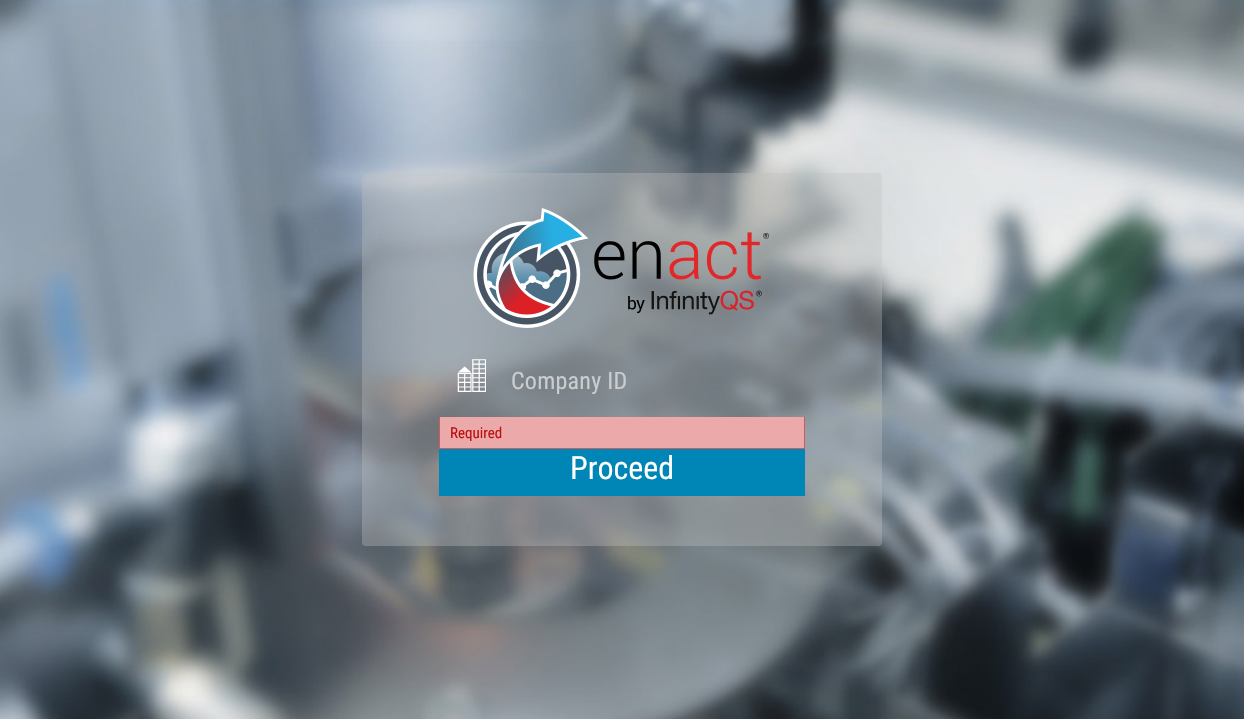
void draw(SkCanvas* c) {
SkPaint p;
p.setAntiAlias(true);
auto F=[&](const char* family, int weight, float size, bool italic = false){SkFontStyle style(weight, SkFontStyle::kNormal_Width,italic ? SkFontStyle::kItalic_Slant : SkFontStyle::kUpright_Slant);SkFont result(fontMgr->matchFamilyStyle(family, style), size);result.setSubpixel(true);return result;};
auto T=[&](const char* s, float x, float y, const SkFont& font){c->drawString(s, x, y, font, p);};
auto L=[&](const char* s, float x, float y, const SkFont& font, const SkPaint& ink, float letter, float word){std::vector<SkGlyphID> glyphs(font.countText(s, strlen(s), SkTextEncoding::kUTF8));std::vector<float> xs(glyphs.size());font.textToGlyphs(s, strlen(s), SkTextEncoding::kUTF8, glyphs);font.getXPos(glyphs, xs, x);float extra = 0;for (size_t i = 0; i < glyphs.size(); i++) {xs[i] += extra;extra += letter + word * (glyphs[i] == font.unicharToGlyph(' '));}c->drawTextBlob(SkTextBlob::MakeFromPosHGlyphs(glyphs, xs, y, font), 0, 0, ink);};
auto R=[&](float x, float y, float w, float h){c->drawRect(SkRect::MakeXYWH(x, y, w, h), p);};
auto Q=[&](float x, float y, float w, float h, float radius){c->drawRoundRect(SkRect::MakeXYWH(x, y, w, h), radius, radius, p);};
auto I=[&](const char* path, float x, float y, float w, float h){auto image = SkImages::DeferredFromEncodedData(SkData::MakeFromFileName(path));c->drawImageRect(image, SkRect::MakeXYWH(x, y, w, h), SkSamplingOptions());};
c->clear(0xffffffff);
I("1.png",0,0,1244,719);
p.setColor(0x57c1c1c1);
Q(362,173,520,373,4);
I("2.png",473,208,296,120);
I("3.png",457,359,29,33);
auto f1 = F("Roboto Condensed",400,24);
p.setColor(0xffcbced0);
L("Company ID",511,389,f1,p,.25,0);
p.setColor(0xffeba9a9);
R(440,417,364,31);
p.setColor(0xffcd5c5c);
R(804,417,1,32);
R(439,448,366,1);
R(439,417,1,32);
auto f2 = F("Roboto Condensed",400,15);
p.setColor(0xffbb0f0f);
T("Required",450,438,f2);
p.setColor(0xff0085b7);
R(439,449,366,47);
auto f3 = F("Roboto Condensed",400,32);
p.setColor(0xffffffff);
T("Proceed",570,479,f3);
}
